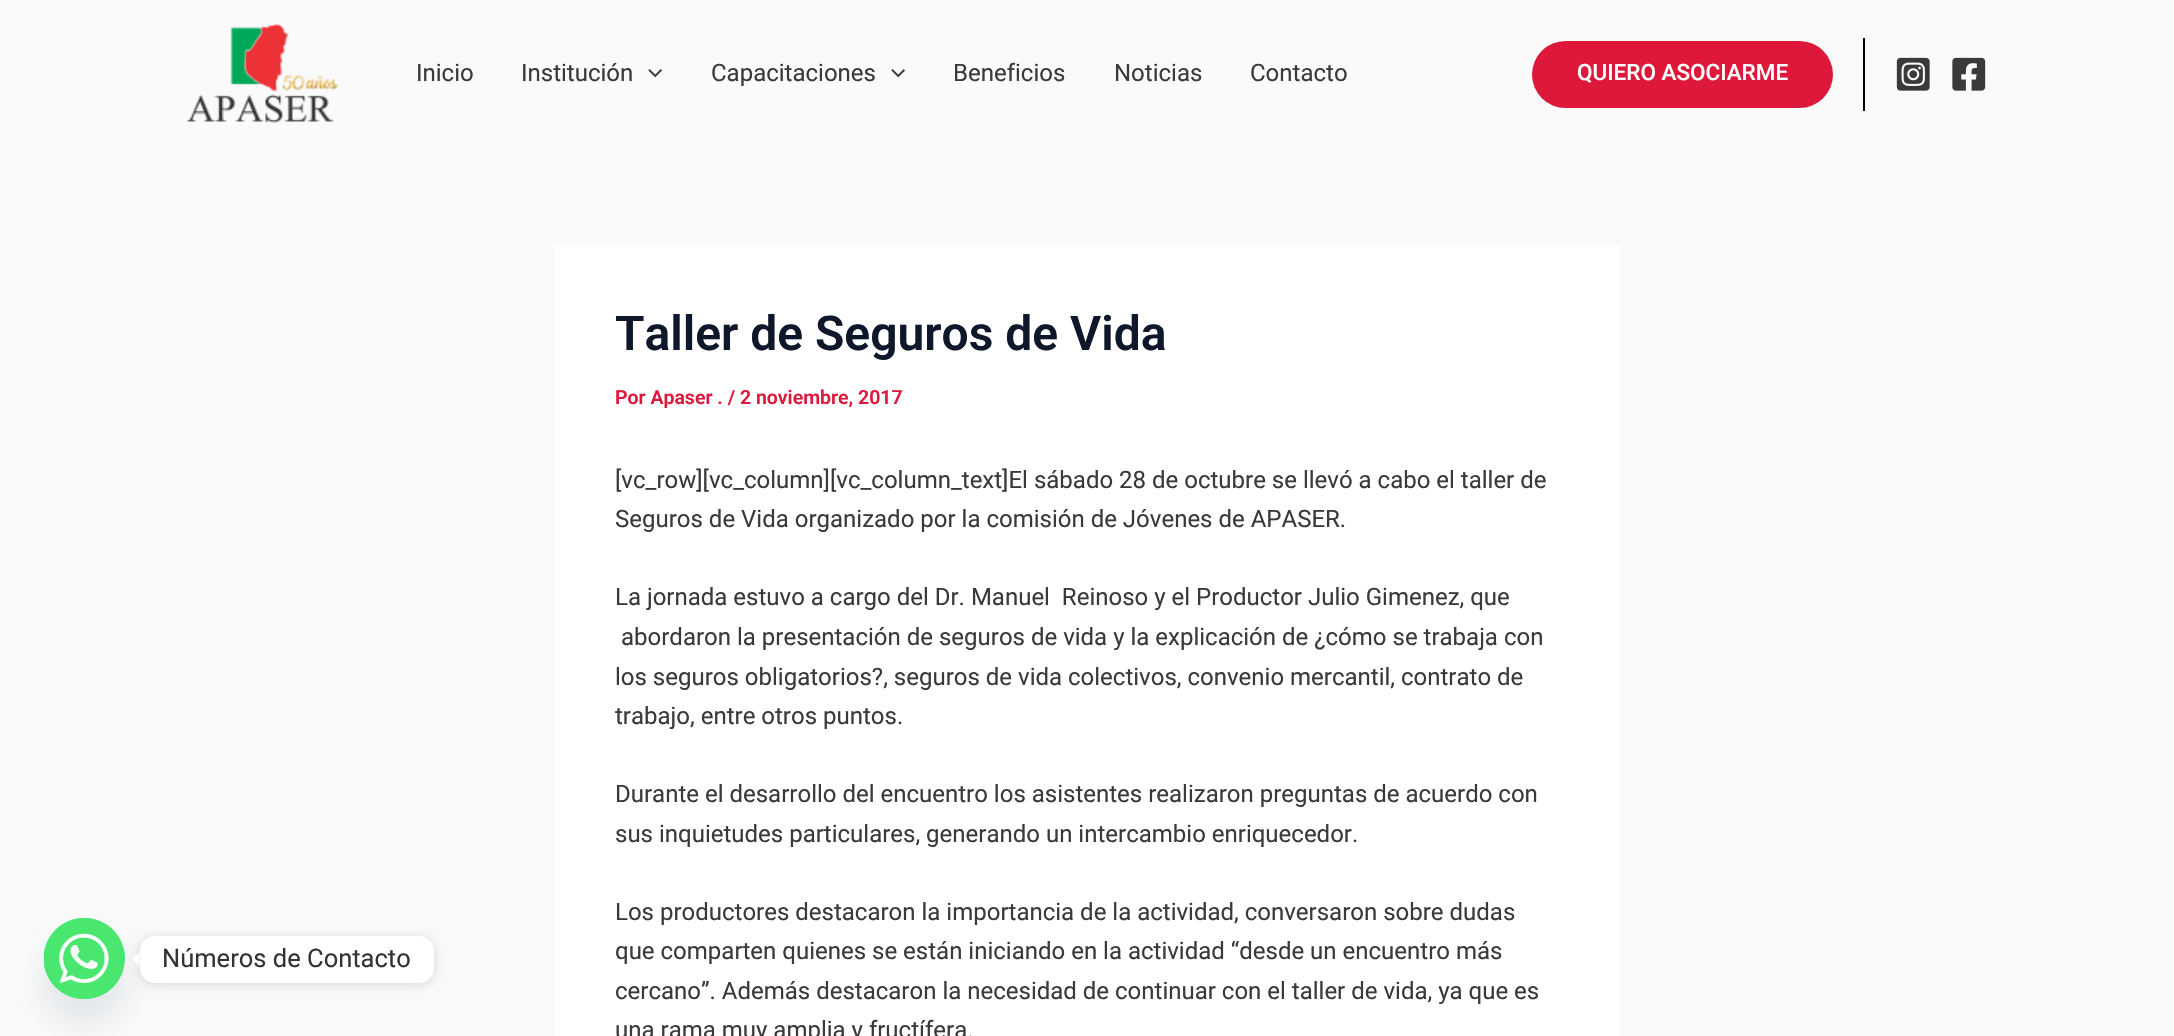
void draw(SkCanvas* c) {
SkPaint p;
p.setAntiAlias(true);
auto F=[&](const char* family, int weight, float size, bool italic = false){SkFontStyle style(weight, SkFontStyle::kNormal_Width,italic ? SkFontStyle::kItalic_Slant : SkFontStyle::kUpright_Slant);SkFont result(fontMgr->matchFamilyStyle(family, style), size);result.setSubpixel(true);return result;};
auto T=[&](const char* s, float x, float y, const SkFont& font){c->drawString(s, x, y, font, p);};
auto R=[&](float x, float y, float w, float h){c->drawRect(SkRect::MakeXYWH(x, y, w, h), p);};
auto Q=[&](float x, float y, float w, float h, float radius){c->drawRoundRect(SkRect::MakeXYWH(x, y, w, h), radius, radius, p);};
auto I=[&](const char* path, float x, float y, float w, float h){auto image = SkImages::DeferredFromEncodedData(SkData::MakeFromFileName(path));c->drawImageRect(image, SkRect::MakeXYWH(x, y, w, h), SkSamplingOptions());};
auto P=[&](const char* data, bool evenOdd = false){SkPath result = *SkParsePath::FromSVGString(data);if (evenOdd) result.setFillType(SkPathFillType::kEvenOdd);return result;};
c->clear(0xfffafafa);
p.setColor(0x2949687e);
p.setMaskFilter(SkMaskFilter::MakeBlur(kNormal_SkBlurStyle, 18));
c->drawRoundRect(SkRect::MakeXYWH(44,942,81,81),40.5,40.5,p);
p.setMaskFilter(nullptr);
p.setColor(0xff49e670);
c->drawCircle(84.5,958.5,40.5,p);
I("1.png",44,918,81,81);
p.setColor(0x26000000);
p.setMaskFilter(SkMaskFilter::MakeBlur(kNormal_SkBlurStyle, 6));
c->drawRoundRect(SkRect::MakeXYWH(140,938,294,46),15,15,p);
p.setMaskFilter(nullptr);
p.setColor(0xffffffff);
Q(140,936,294,47,15);
c->drawPath(P("M139.5 952v15l-7.5-8z"),p);
auto f1 = F("Roboto",400,25.5);
p.setColor(0xff333333);
T("Números de Contacto",162,967,f1);
I("2.png",187,24,151,99);
auto f2 = F("Roboto",400,24);
p.setColor(0xff3a3a3a);
T("Inicio",416,81,f2);
T("Institución",521,81,f2);
I("3.png",648,69,14,9);
T("Capacitaciones",711,81,f2);
I("3.png",891,69,14,9);
T("Beneficios",953,81,f2);
T("Noticias",1114,81,f2);
T("Contacto",1250,81,f2);
p.setColor(0xffdd183b);
Q(1532,41,301,67,33.5);
auto f3 = F("Roboto",500,22.5);
p.setColor(0xffffffff);
T("QUIERO ASOCIARME",1577,80,f3);
p.setColor(0xff000000);
R(1863,38,2,73);
I("4.png",1896,57,34,34);
I("5.png",1952,57,34,34);
p.setColor(0xffffffff);
R(555,245,1065,791);
auto f4 = F("Roboto",600,48);
p.setColor(0xff0f172a);
T("Taller de Seguros de Vida",615,350,f4);
auto f5 = F("Roboto",600,19.5);
p.setColor(0xffdd183b);
T("Por Apaser . / 2 noviembre, 2017",615,404,f5);
p.setColor(0xff3a3a3a);
T("[vc_row][vc_column][vc_column_text]El sábado 28 de octubre se llevó a cabo el taller de",615,488,f2);
T("Seguros de Vida organizado por la comisión de Jóvenes de APASER.",615,527,f2);
T("La jornada estuvo a cargo del Dr. Manuel  Reinoso y el Productor Julio Gimenez, que",615,605,f2);
T("abordaron la presentación de seguros de vida y la explicación de ¿cómo se trabaja con",621,645,f2);
T("los seguros obligatorios?, seguros de vida colectivos, convenio mercantil, contrato de",615,685,f2);
T("trabajo, entre otros puntos.",615,724,f2);
T("Durante el desarrollo del encuentro los asistentes realizaron preguntas de acuerdo con",615,802,f2);
T("sus inquietudes particulares, generando un intercambio enriquecedor.",615,842,f2);
T("Los productores destacaron la importancia de la actividad, conversaron sobre dudas",615,920,f2);
T("que comparten quienes se están iniciando en la actividad “desde un encuentro más",615,959,f2);
T("cercano”. Además destacaron la necesidad de continuar con el taller de vida, ya que es",615,999,f2);
T("una rama muy amplia y fructífera.",615,1038,f2);
}
